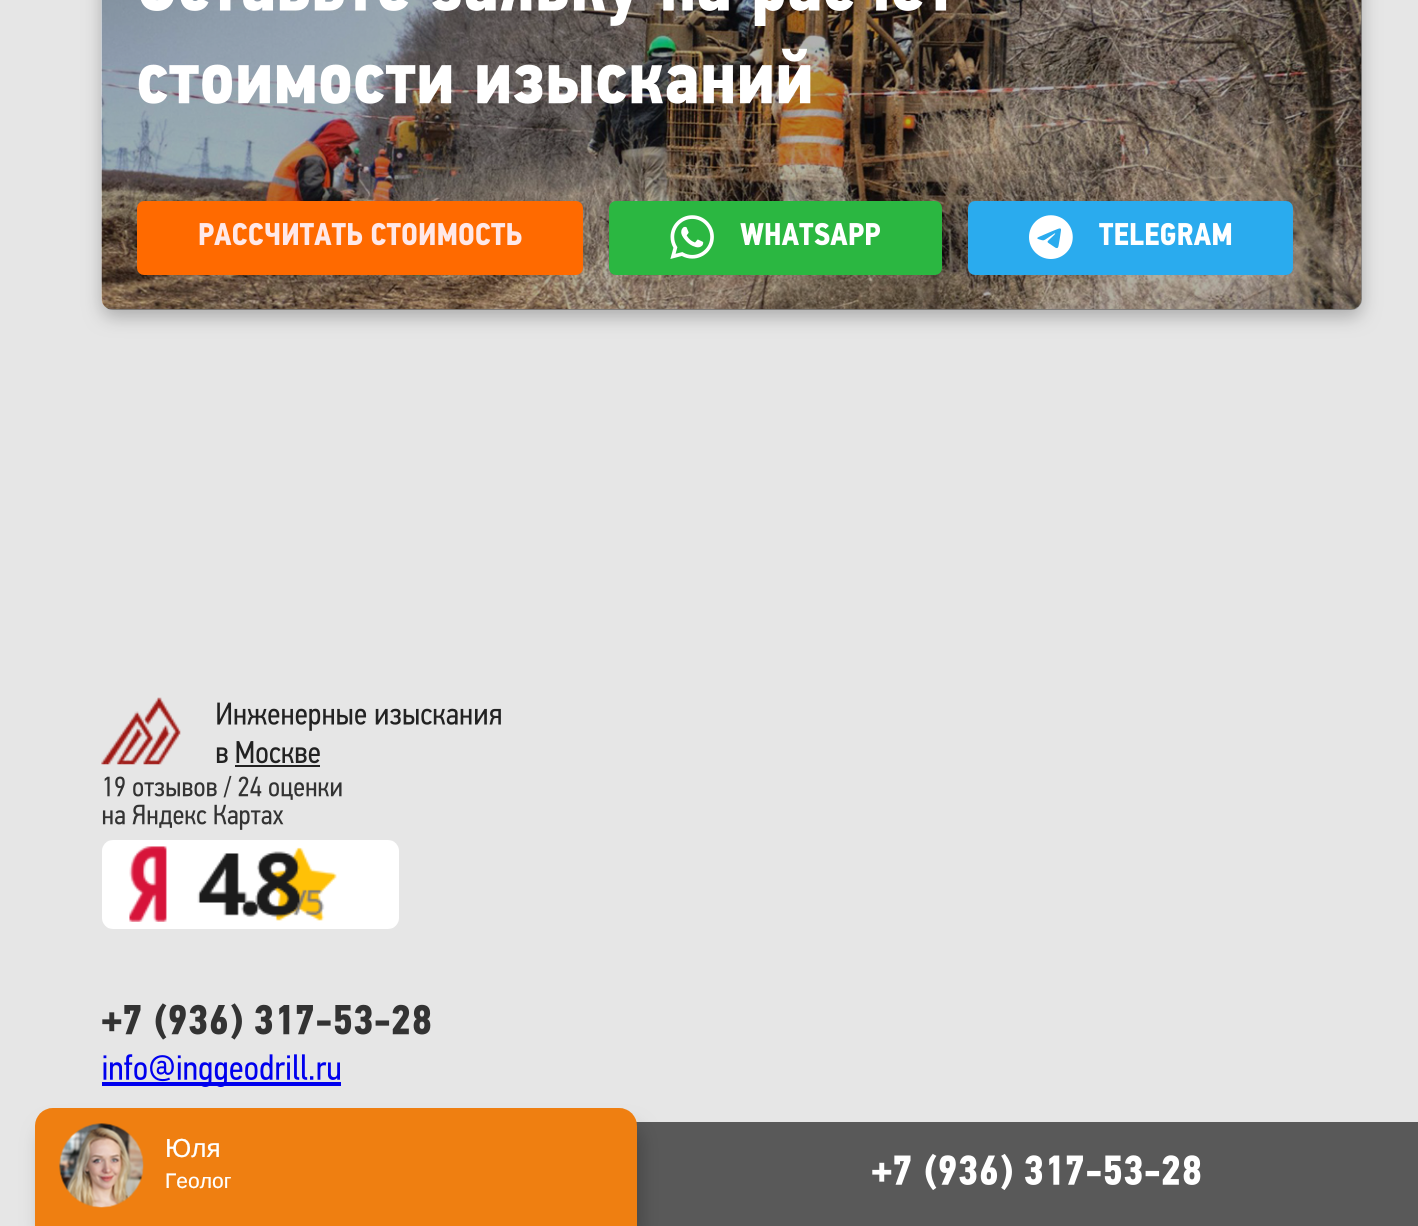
void draw(SkCanvas* c) {
SkPaint p;
p.setAntiAlias(true);
auto F=[&](const char* family, int weight, float size, bool italic = false){SkFontStyle style(weight, SkFontStyle::kNormal_Width,italic ? SkFontStyle::kItalic_Slant : SkFontStyle::kUpright_Slant);SkFont result(fontMgr->matchFamilyStyle(family, style), size);result.setSubpixel(true);return result;};
auto T=[&](const char* s, float x, float y, const SkFont& font){c->drawString(s, x, y, font, p);};
auto R=[&](float x, float y, float w, float h){c->drawRect(SkRect::MakeXYWH(x, y, w, h), p);};
auto Q=[&](float x, float y, float w, float h, float radius){c->drawRoundRect(SkRect::MakeXYWH(x, y, w, h), radius, radius, p);};
auto I=[&](const char* path, float x, float y, float w, float h){auto image = SkImages::DeferredFromEncodedData(SkData::MakeFromFileName(path));c->drawImageRect(image, SkRect::MakeXYWH(x, y, w, h), SkSamplingOptions());};
auto P=[&](const char* data, bool evenOdd = false){SkPath result = *SkParsePath::FromSVGString(data);if (evenOdd) result.setFillType(SkPathFillType::kEvenOdd);return result;};
c->clear(0xffe6e6e6);
p.setColor(0x40000000);
p.setMaskFilter(SkMaskFilter::MakeBlur(kNormal_SkBlurStyle, 9));
c->drawRoundRect(SkRect::MakeXYWH(102,-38,1260,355),11,11,p);
p.setMaskFilter(nullptr);
I("1.png",101,0,1261,310);
p.setColor(0x4d000000);
Q(102,-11,1260,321,11);
I("2.png",141,0,806,26);
I("3.png",138,48,673,56);
p.setColor(0xffff6a00);
Q(137,201,446,74,7);
I("4.png",199,222,323,24);
p.setColor(0xff2bb741);
Q(609,201,333,74,7);
I("5.png",670,215,44,44);
I("6.png",740,222,140,24);
p.setColor(0xff2aabee);
Q(968,201,325,74,7);
I("7.png",1029,215,44,44);
I("8.png",1099,222,133,24);
I("9.png",101,697,80,68);
I("10.png",217,702,284,29);
I("11.png",216,747,12,16);
I("12.png",236,741,84,23);
p.setColor(0xff222222);
R(235,765,85,2);
I("13.png",104,775,238,25);
I("14.png",102,804,182,26);
p.setColor(0xffffffff);
Q(102,840,297,89,11);
I("15.png",129,846,208,76);
I("16.png",102,1003,329,37);
p.setColor(0xff0000ee);
R(102,1082,239,4);
I("17.png",103,1054,237,33);
p.setColor(0xff595959);
R(636,1122,782,104);
p.setColor(0x33000000);
p.setMaskFilter(SkMaskFilter::MakeBlur(kNormal_SkBlurStyle, 9));
c->drawRoundRect(SkRect::MakeXYWH(40,1125,602,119),18,18,p);
p.setMaskFilter(nullptr);
p.setColor(0xffef7f11);
c->drawPath(P("M53 1108h566c10 0 18 8 18 18v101h-602v-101c0-10 8-18 18-18z"),p);
I("18.png",59,1123,85,85);
auto f1 = F("Liberation Sans",400,26);
p.setColor(0xffffffff);
T("Юля",165,1157,f1);
auto f2 = F("Liberation Sans",400,21);
T("Геолог",165,1188,f2);
I("19.png",872,1153,329,37);
}
